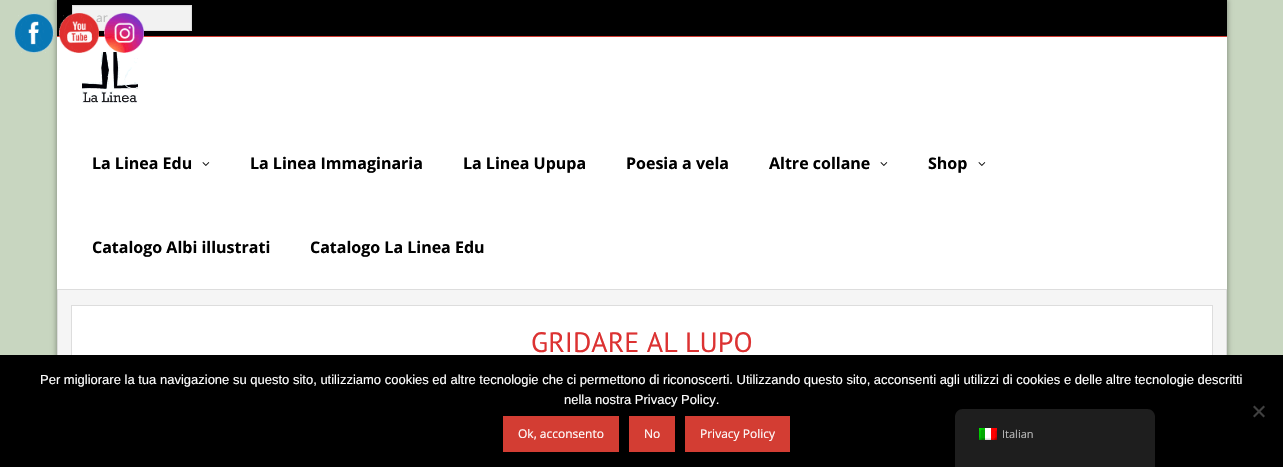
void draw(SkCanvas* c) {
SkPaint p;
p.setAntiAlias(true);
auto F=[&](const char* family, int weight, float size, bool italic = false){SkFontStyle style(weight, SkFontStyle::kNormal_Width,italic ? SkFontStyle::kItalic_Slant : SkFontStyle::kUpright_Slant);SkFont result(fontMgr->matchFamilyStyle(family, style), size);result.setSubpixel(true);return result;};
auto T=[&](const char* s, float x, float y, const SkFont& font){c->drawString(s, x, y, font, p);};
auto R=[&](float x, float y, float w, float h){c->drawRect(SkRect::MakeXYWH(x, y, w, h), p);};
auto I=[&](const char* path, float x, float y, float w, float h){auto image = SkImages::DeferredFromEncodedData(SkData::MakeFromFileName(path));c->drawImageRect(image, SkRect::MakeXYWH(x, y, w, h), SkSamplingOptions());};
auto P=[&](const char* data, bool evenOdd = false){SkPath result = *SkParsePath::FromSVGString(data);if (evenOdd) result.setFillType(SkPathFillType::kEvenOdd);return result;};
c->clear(0xffc8d6c0);
p.setColor(0x4d000000);
p.setMaskFilter(SkMaskFilter::MakeBlur(kNormal_SkBlurStyle, 2.5));
c->drawRect(SkRect::MakeXYWH(56,-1,1172,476),p);
p.setMaskFilter(nullptr);
I("1.png",14,13,40,40);
p.setColor(0xffffffff);
R(57,37,1170,252);
p.setColor(0xff000000);
R(57,0,1170,36);
p.setColor(0xffd33d33);
R(57,36,1170,1);
p.setColor(0xfff2f2f2);
R(73,7,117,23);
c->save();
c->clipRect(SkRect::MakeXYWH(73,6,118,24));
p.setColor(0xffeeeeee);
c->drawPath(P("M-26-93h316v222h-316zm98 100h118v24h-118z",true),p);
c->restore();
p.setStroke(true);
p.setStrokeWidth(1);
p.setColor(0xffdddddd);
c->drawRect(SkRect::MakeXYWH(72.5,5.5,119,25),p);
auto f1 = F("Open Sans",400,12);
p.setStroke(false);
p.setColor(0xffbbbbbb);
T("ar",96,22,f1);
I("4.png",82,52,56,52);
I("2.png",59,13,40,40);
I("3.png",104,13,40,40);
p.setColor(0xffdddddd);
R(57,289,1170,1);
auto f2 = F("Open Sans",700,16);
p.setColor(0xff000000);
T("La Linea Edu",92,169,f2);
I("5.png",202,162,8,4);
T("La Linea Immaginaria",250,169,f2);
T("La Linea Upupa",463,169,f2);
T("Poesia a vela",626,169,f2);
T("Altre collane",769,169,f2);
I("5.png",880,162,8,4);
T("Shop",928,169,f2);
I("5.png",978,162,8,4);
T("Catalogo Albi illustrati",92,253,f2);
T("Catalogo La Linea Edu",310,253,f2);
p.setColor(0xfff5f5f5);
R(58,290,1168,65);
p.setColor(0xffdddddd);
R(1226,290,1,65);
R(57,290,1,65);
p.setColor(0xffffffff);
R(72,306,1140,49);
p.setStroke(true);
p.setColor(0xffdddddd);
c->drawRect(SkRect::MakeXYWH(71.5,305.5,1141,73),p);
auto f3 = F("PT Sans",400,28);
p.setStroke(false);
p.setColor(0xffdc3232);
T("GRIDARE AL LUPO",531,352,f3);
p.setColor(0xff000000);
R(0,355,1283,112);
auto f4 = F("Liberation Sans",400,13);
p.setColor(0xffffffff);
T("Per migliorare la tua navigazione su questo sito, utilizziamo cookies ed altre tecnologie che ci permettono di riconoscerti. Utilizzando questo sito, acconsenti agli utilizzi di cookies e delle altre tecnologie descritti",40,384,f4);
T("nella nostra Privacy Policy.",564,404,f4);
p.setColor(0xff404040);
c->drawPath(P("M1263.5 405.5l1.5 1.5l-10.5 10.5l-1.5-1.5z"),p);
c->drawPath(P("M1253 407l1.5-1.5l10.5 10.5l-1.5 1.5z"),p);
p.setColor(0xffd33d33);
R(503,416,116,36);
p.setColor(0xffffffff);
T("Ok, acconsento",518,438,f1);
p.setColor(0xffd33d33);
R(629,416,46,36);
p.setColor(0xffffffff);
T("No",644,438,f1);
p.setColor(0xffd33d33);
R(685,416,105,36);
p.setColor(0xffffffff);
T("Privacy Policy",700,438,f1);
p.setColor(0xff1e1e1e);
c->drawPath(P("M963 409h184c4.5 0 8 3.5 8 8v50h-200v-50c0-4.5 3.5-8 8-8z"),p);
I("6.png",979,428,18,12);
auto f5 = F("Open Sans",400,11);
p.setColor(0xffbbbbbb);
T("Italian",1002,438,f5);
}
